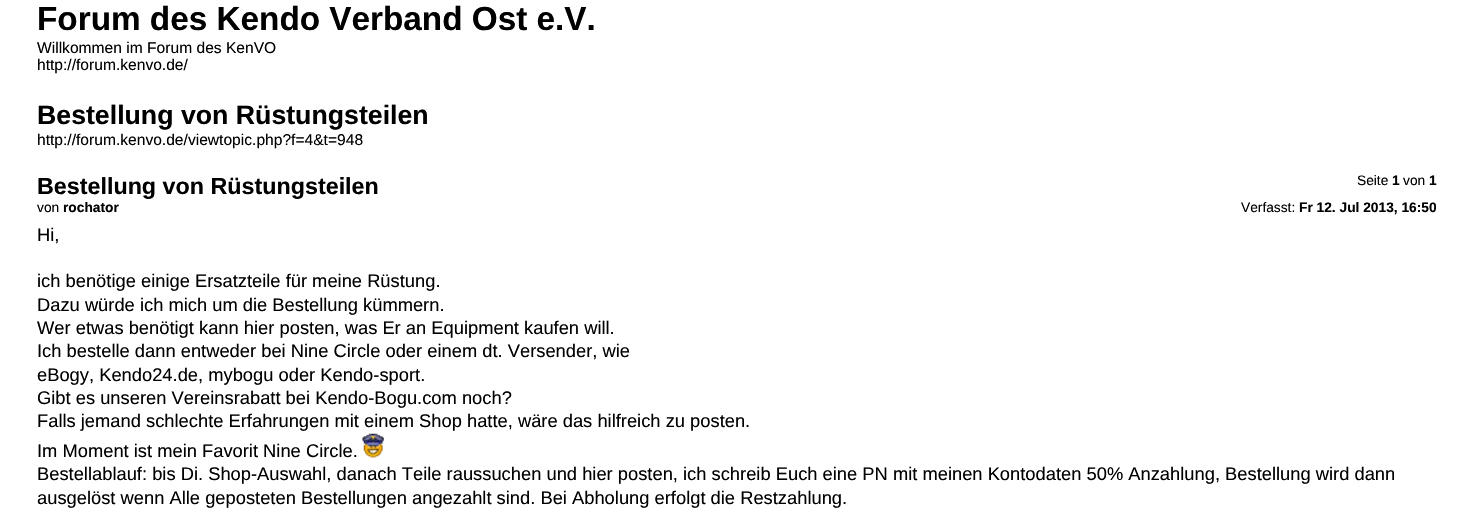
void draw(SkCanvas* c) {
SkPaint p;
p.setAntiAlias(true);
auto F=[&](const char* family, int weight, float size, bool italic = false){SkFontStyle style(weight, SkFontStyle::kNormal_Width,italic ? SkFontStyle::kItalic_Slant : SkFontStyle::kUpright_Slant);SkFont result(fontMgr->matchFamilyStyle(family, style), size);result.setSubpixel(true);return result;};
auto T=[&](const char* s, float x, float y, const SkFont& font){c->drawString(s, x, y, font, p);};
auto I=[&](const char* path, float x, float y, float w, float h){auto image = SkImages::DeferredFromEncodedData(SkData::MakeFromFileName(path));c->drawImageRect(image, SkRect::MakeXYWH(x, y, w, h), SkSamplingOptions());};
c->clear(0xffffffff);
auto f1 = F("Liberation Sans",700,33.3);
p.setColor(0xff000000);
T("Forum des Kendo Verband Ost e.V.",37,30,f1);
auto f2 = F("Liberation Sans",400,15.6);
T("Willkommen im Forum des KenVO",37,53,f2);
T("http://forum.kenvo.de/",37,70,f2);
auto f3 = F("Liberation Sans",700,26.7);
T("Bestellung von Rüstungsteilen",37,124,f3);
T("http://forum.kenvo.de/viewtopic.php?f=4&t=948",37,145,f2);
auto f4 = F("Liberation Sans",400,13.75);
T("Seite",1357,185,f4);
auto f5 = F("Liberation Sans",700,13.75);
T("1",1392,185,f5);
T("von",1403,185,f4);
T("1",1429,185,f5);
auto f6 = F("Liberation Sans",700,23.3);
T("Bestellung von Rüstungsteilen",37,194,f6);
T("von",37,212,f4);
T("rochator",63,212,f5);
T("Verfasst:",1241,212,f4);
T("Fr 12. Jul 2013, 16:50",1299,212,f5);
auto f7 = F("Liberation Sans",400,18.33);
T("Hi,",37,241,f7);
T("ich benötige einige Ersatzteile für meine Rüstung.",37,287,f7);
T("Dazu würde ich mich um die Bestellung kümmern.",37,311,f7);
T("Wer etwas benötigt kann hier posten, was Er an Equipment kaufen will.",37,334,f7);
T("Ich bestelle dann entweder bei Nine Circle oder einem dt. Versender, wie",37,357,f7);
T("eBogy, Kendo24.de, mybogu oder Kendo-sport.",37,381,f7);
T("Gibt es unseren Vereinsrabatt bei Kendo-Bogu.com noch?",37,404,f7);
T("Falls jemand schlechte Erfahrungen mit einem Shop hatte, wäre das hilfreich zu posten.",37,427,f7);
T("Im Moment ist mein Favorit Nine Circle.",37,457,f7);
I("1.png",362,433,22,25);
T("Bestellablauf: bis Di. Shop-Auswahl, danach Teile raussuchen und hier posten, ich schreib Euch eine PN mit meinen Kontodaten 50% Anzahlung, Bestellung wird dann",37,480,f7);
T("ausgelöst wenn Alle geposteten Bestellungen angezahlt sind. Bei Abholung erfolgt die Restzahlung.",37,504,f7);
}
